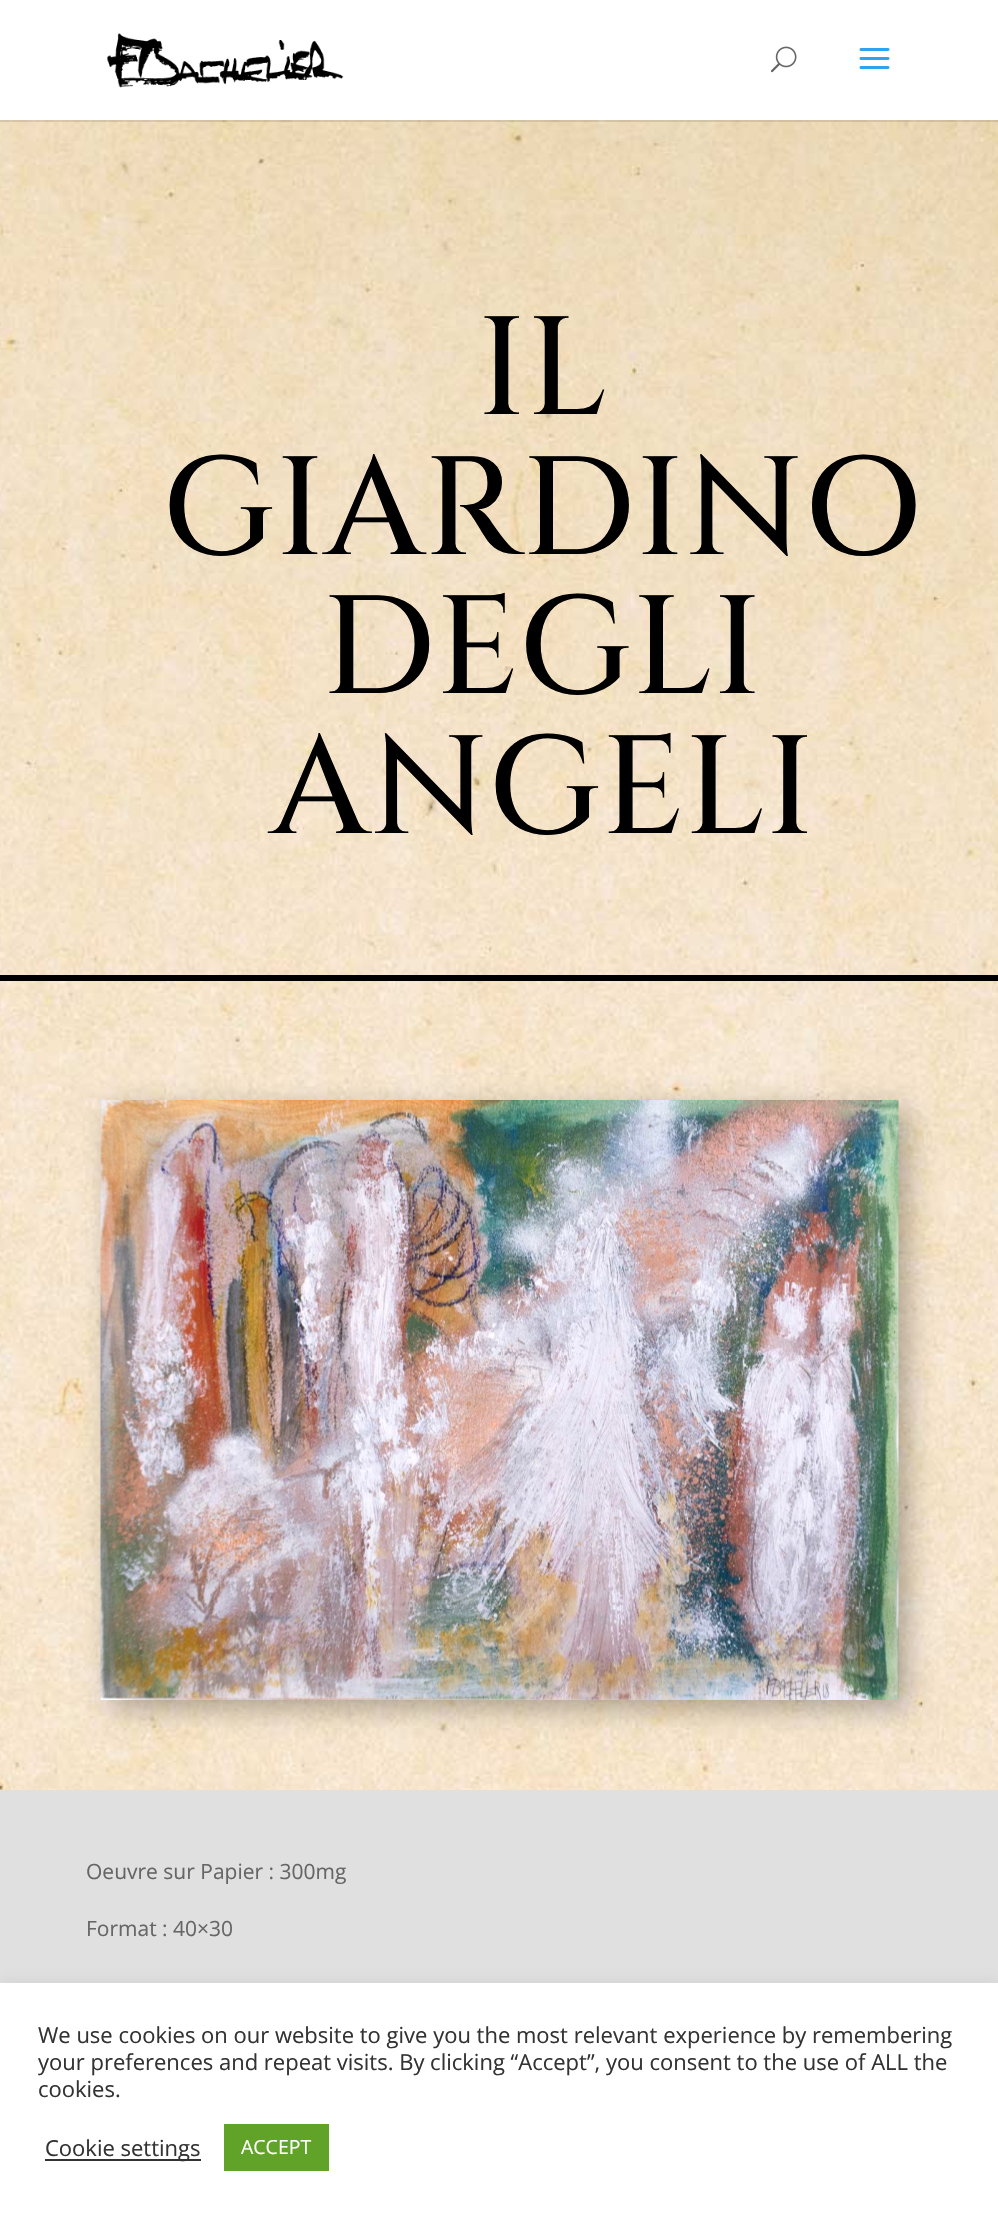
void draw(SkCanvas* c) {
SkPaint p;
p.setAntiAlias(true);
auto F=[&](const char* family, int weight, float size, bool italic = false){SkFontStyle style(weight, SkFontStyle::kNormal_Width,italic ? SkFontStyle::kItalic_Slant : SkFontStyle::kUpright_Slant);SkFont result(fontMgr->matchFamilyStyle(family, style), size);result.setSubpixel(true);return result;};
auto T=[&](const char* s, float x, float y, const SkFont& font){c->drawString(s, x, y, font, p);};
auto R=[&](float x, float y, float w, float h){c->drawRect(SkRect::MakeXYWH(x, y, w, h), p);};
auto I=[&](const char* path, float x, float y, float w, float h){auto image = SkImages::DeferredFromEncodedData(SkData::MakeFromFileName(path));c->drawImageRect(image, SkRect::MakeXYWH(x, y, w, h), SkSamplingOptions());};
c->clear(0xffffffff);
I("4.png",0,120,998,1670);
p.setColor(0x1a000000);
R(0,120,998,2);
I("1.png",107,33,237,55);
I("2.png",770,46,27,27);
I("3.png",859,48,31,21);
auto f1 = F("Cinzel",500,139.5);
p.setColor(0xff000000);
T("IL",477,414,f1);
T("GIARDINO",162,554,f1);
T("DEGLI",322,693,f1);
T("ANGELI",270,833,f1);
R(0,975,998,6);
p.setColor(0x4d000000);
p.setMaskFilter(SkMaskFilter::MakeBlur(kNormal_SkBlurStyle, 13.5));
c->drawRect(SkRect::MakeXYWH(110,1109,798,600),p);
p.setMaskFilter(nullptr);
I("5.png",100,1100,799,600);
p.setColor(0xffe0e0e0);
R(0,1790,998,193);
auto f2 = F("Open Sans",400,21);
p.setColor(0xff666666);
T("Oeuvre sur Papier : 300mg",86,1879,f2);
T("Format : 40×30",86,1936,f2);
p.setColor(0x4dacabab);
p.setMaskFilter(SkMaskFilter::MakeBlur(kNormal_SkBlurStyle, 7.5));
c->drawRect(SkRect::MakeXYWH(0,1982,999,232),p);
p.setMaskFilter(nullptr);
p.setColor(0xffffffff);
R(0,1983,998,232);
auto f3 = F("Open Sans",400,22);
p.setColor(0xff333333);
T("We use cookies on our website to give you the most relevant experience by remembering",38,2043,f3);
T("your preferences and repeat visits. By clicking “Accept”, you consent to the use of ALL the",38,2070,f3);
T("cookies.",38,2097,f3);
R(45,2159,156,2);
T("Cookie settings",45,2156,f3);
p.setColor(0xff61a229);
R(224,2124,105,47);
auto f4 = F("Open Sans",400,19.5);
p.setColor(0xffffffff);
T("ACCEPT",241,2154,f4);
}
